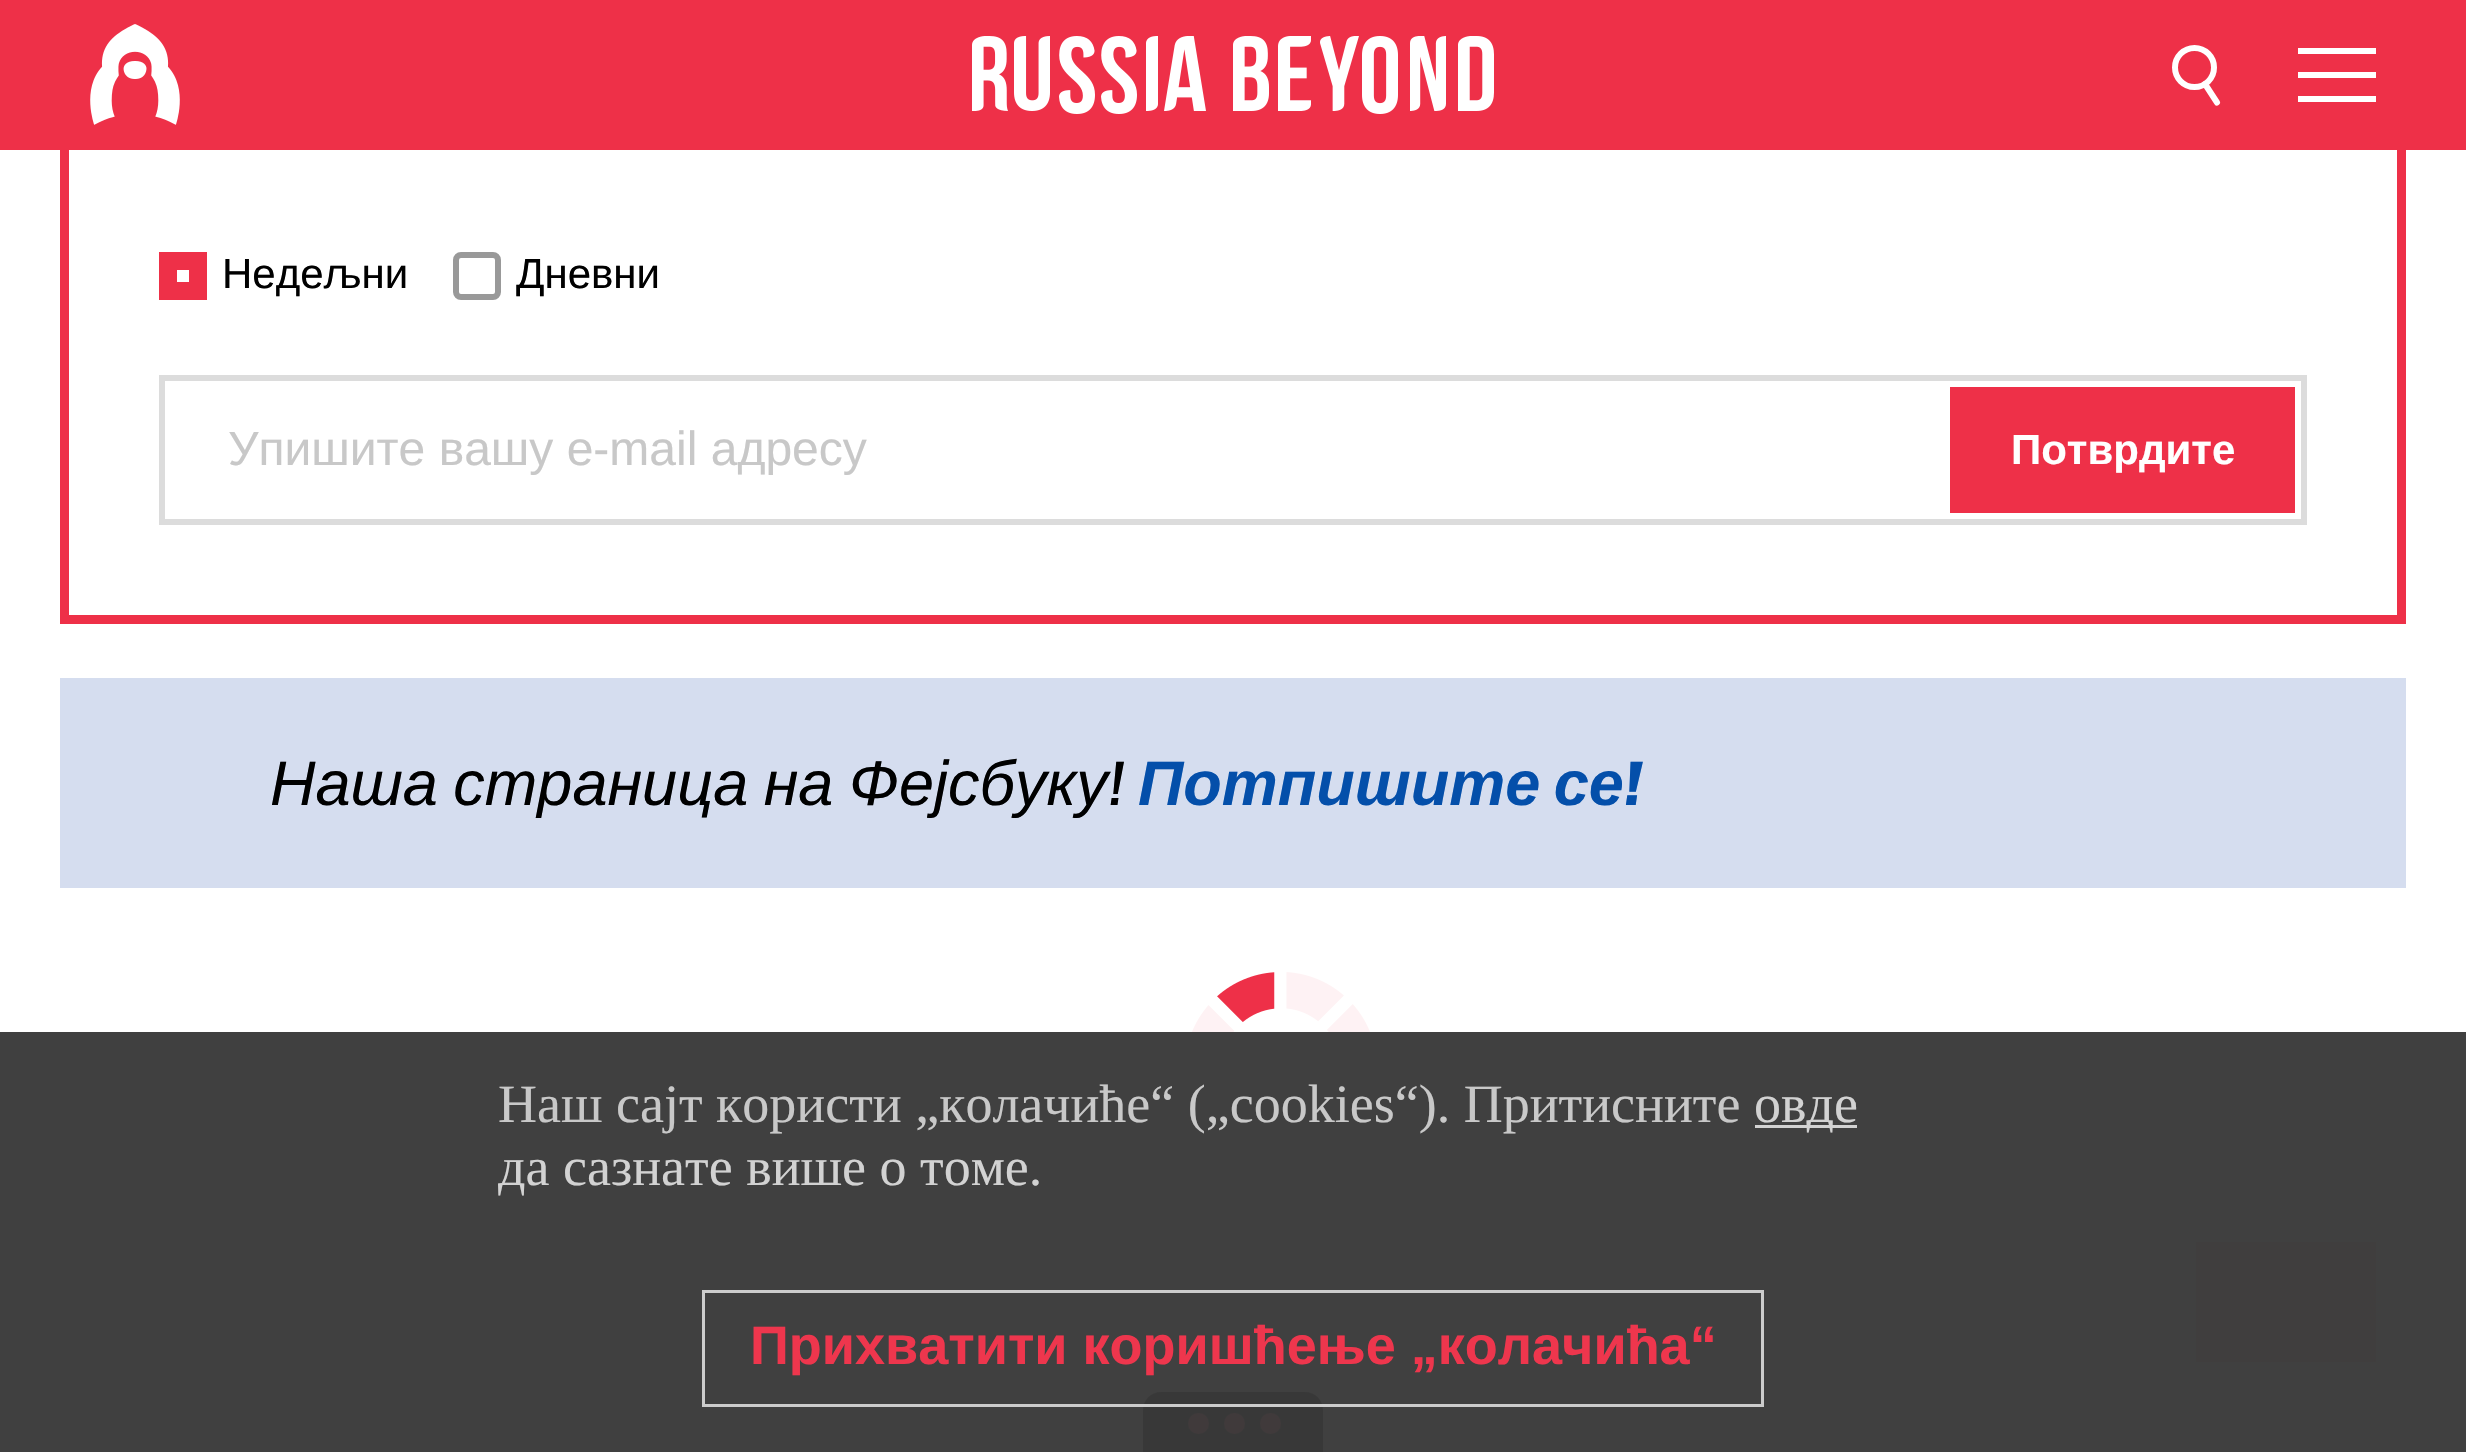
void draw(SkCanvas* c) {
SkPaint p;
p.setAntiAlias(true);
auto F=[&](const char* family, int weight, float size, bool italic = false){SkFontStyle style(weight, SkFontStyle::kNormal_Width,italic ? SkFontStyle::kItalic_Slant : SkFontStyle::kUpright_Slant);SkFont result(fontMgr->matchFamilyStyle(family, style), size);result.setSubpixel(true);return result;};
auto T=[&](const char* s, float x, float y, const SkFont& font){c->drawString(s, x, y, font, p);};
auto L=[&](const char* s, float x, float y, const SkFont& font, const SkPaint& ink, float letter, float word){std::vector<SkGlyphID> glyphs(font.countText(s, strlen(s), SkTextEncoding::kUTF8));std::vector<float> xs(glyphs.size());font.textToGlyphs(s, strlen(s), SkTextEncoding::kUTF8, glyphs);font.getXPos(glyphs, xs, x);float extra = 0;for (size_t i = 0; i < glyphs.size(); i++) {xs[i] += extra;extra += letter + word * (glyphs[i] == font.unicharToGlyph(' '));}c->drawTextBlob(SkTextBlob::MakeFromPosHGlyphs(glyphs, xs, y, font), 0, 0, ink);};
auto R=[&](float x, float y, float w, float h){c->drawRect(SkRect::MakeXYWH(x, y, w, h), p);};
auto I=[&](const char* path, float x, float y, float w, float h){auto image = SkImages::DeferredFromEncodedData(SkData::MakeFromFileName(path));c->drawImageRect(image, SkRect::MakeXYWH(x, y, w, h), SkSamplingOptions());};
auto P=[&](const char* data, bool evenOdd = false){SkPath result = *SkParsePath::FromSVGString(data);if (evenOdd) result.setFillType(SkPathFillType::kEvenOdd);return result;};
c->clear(0xffececec);
p.setColor(0xffffffff);
R(0,150,2466,1062);
p.setStroke(true);
p.setStrokeWidth(9);
p.setColor(0xffee3048);
c->drawRect(SkRect::MakeXYWH(64.5,-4.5,2337,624),p);
p.setStroke(false);
R(0,0,2466,150);
I("1.png",90,24,90,101);
I("2.png",972,36,522,78);
p.setStroke(true);
p.setStrokeWidth(6);
p.setColor(0xffffffff);
c->drawCircle(2194.5,67.5,19.5,p);
p.setStrokeCap(SkPaint::kRound_Cap);
c->drawPath(P("M2205 84l12 18.5"),p);
p.setStroke(false);
c->drawPath(P("M2298 48h78v6h-78zm0 24h78v6h-78zm0 24h78v6h-78z",true),p);
p.setColor(0xffedb4bb);
R(2196,1242,180,120);
p.setStroke(true);
p.setStrokeWidth(18);
p.setStrokeCap(SkPaint::kButt_Cap);
p.setColor(0xffee3048);
c->drawPath(P("M168 261h30v30h-30z"),p);
auto f1 = F("Liberation Sans",400,42);
p.setStroke(false);
p.setColor(0xff000000);
T("Недељни",222,288,f1);
p.setStroke(true);
p.setStrokeWidth(6);
p.setColor(0xff999999);
c->drawRoundRect(SkRect::MakeXYWH(456,255,42,42),5,5,p);
p.setStroke(false);
p.setColor(0xff000000);
T("Дневни",516,288,f1);
p.setStroke(true);
p.setColor(0xffdcdcdc);
c->drawRect(SkRect::MakeXYWH(162,378,2142,144),p);
auto f2 = F("Liberation Sans",400,48);
p.setStroke(false);
p.setColor(0xffc8c8c8);
T("Упишите вашу e-mail адресу",228,465,f2);
p.setColor(0xffee3048);
R(1950,387,345,126);
auto f3 = F("Liberation Sans",700,42);
p.setColor(0xffffffff);
T("Потврдите",2011,464,f3);
p.setColor(0xffd5ddef);
R(60,678,2346,210);
auto f4 = F("Liberation Sans",400,63,true);
p.setColor(0xff000000);
L("Наша страница на Фејсбуку",270,805,f4,p,0,-2);
auto f5 = F("Chivo",400,63,true);
T("!",1108,805,f5);
auto f6 = F("Liberation Sans",700,63,true);
p.setColor(0xff044faa);
L("Потпишите се",1138,805,f6,p,0,-4);
auto f7 = F("Chivo",700,63,true);
T("!",1624,805,f7);
I("3.png",1185,972,192,192);
p.setColor(0xff000000);
c->drawPath(P("M1161 1392h144c10 0 18 8 18 18v42h-180v-42c0-10 8-18 18-18z"),p);
p.setColor(0xffee3048);
c->drawCircle(1198.5,1423.5,10.5,p);
c->drawCircle(1234.5,1423.5,10.5,p);
c->drawCircle(1270.5,1423.5,10.5,p);
p.setColor(0xf73a3a3a);
R(0,1032,2466,420);
auto f8 = F("Liberation Serif",400,54);
p.setColor(0xffc8c8c8);
T("Наш сајт користи „колачиће“ („cookies“). Притисните",498,1122,f8);
p.setColor(0xffd2d2d2);
R(1755,1125,102,3);
T("овде",1754,1122,f8);
T("да сазнате више о томе.",498,1185,f8);
p.setStroke(true);
p.setStrokeWidth(3);
p.setColor(0xf7d1d1d1);
c->drawRect(SkRect::MakeXYWH(703.5,1291.5,1059,114),p);
auto f9 = F("Liberation Sans",700,54);
p.setStroke(false);
p.setColor(0xffee364d);
T("Прихватити коришћење „колачића“",750,1364,f9);
}
